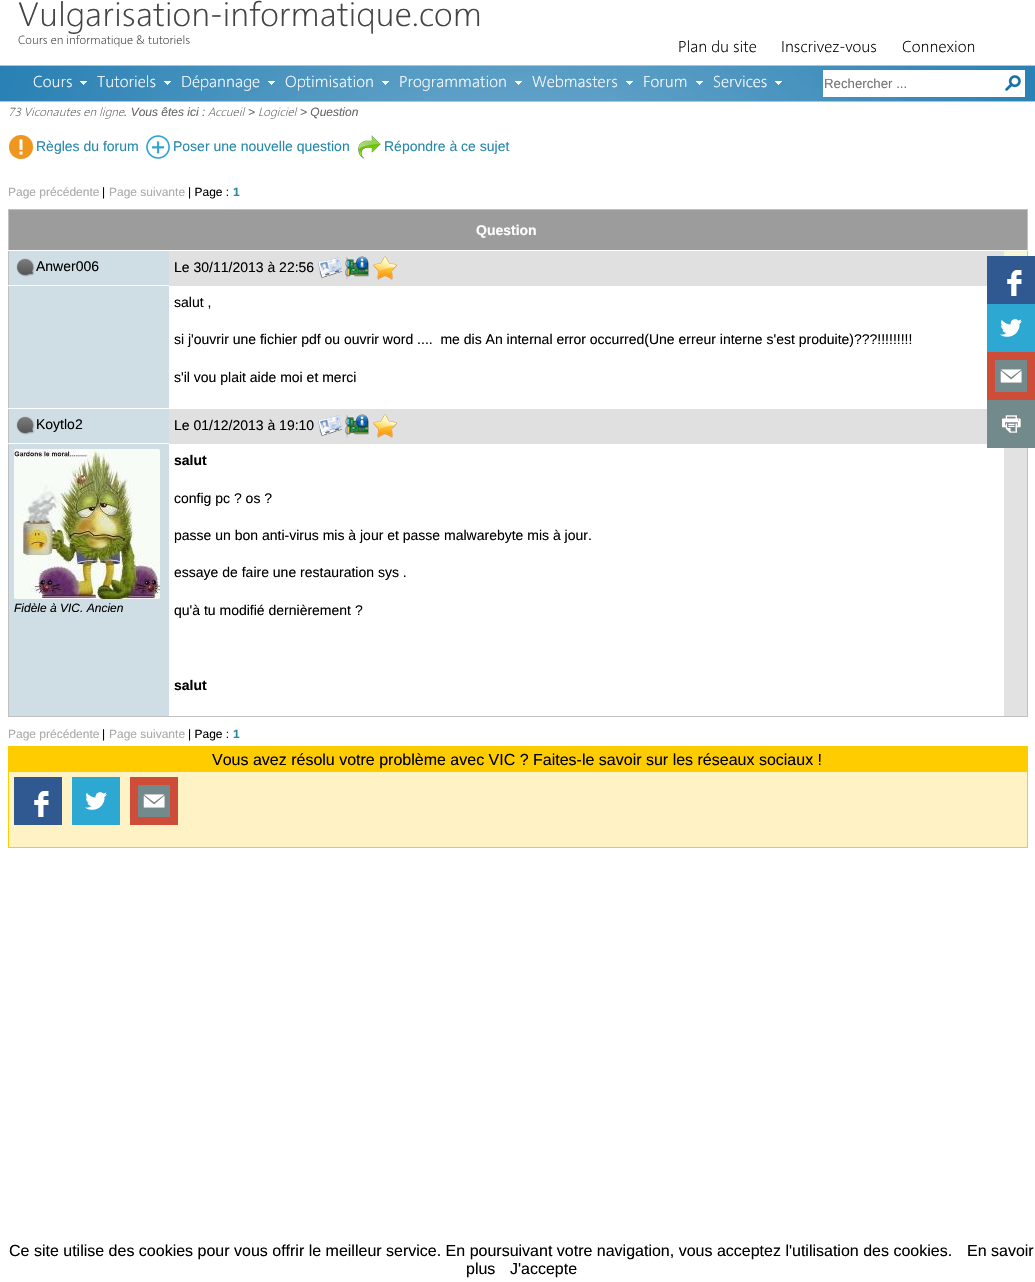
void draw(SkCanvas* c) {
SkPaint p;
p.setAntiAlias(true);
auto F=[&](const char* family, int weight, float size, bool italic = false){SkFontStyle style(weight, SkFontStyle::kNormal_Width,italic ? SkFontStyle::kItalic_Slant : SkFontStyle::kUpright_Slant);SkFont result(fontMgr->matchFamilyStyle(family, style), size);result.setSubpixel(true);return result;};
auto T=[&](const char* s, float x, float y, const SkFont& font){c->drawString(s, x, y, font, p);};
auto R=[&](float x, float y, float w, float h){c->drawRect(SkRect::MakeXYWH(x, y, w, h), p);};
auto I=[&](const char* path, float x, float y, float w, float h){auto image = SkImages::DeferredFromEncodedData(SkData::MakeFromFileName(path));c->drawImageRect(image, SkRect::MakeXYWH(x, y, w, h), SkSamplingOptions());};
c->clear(0xffffffff);
auto f1 = F("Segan",300,34);
p.setColor(0xff444444);
T("Vulgarisation-informatique.com",18,26,f1);
auto f2 = F("Segan",300,12);
T("Cours en informatique & tutoriels",18,44,f2);
auto f3 = F("Segan",300,16);
p.setColor(0xff000000);
T("Plan du site",678,52,f3);
T("Inscrivez-vous",781,52,f3);
T("Connexion",902,52,f3);
p.setColor(0xff1776ae);
R(0,66,1035,35);
I("1.png",0,66,1035,35);
p.setColor(0xffc0c0c0);
R(0,65,1035,1);
R(0,101,1035,1);
I("2.png",80,81,7,4);
p.setColor(0xffffffff);
T("Cours",33,87,f3);
I("3.png",164,81,7,4);
T("Tutoriels",97,87,f3);
I("4.png",268,81,7,4);
T("Dépannage",181,87,f3);
I("5.png",382,81,7,4);
T("Optimisation",285,87,f3);
I("6.png",515,81,7,4);
T("Programmation",399,87,f3);
I("7.png",626,81,7,4);
T("Webmasters",532,87,f3);
I("8.png",696,81,7,4);
T("Forum",643,87,f3);
I("9.png",775,81,7,4);
T("Services",713,87,f3);
R(823,70,202,27);
auto f4 = F("Liberation Sans",400,13.25);
p.setColor(0xff757575);
T("Rechercher ...",824,88,f4);
I("10.png",1005,75,16,16);
auto f5 = F("Segan",300,12,true);
p.setColor(0xff666666);
T("73 Viconautes en ligne",8,116,f5);
auto f6 = F("Liberation Sans",400,12,true);
T(". Vous êtes ici :",124,116,f6);
T("Accueil",208,116,f5);
T(">",248,116,f6);
T("Logiciel",258,116,f5);
T("> Question",300,116,f6);
I("11.png",9,135,24,24);
auto f7 = F("Liberation Sans",400,14);
p.setColor(0xff2789aa);
T("Règles du forum",36,151,f7);
I("12.png",146,135,24,24);
T("Poser une nouvelle question",173,151,f7);
I("13.png",358,135,23,24);
T("Répondre à ce sujet",384,151,f7);
auto f8 = F("Liberation Sans",400,12);
p.setColor(0xffaaaaaa);
T("Page précédente",8,196,f8);
p.setColor(0xff000000);
T("|",102,196,f8);
p.setColor(0xffaaaaaa);
T("Page suivante",109,196,f8);
p.setColor(0xff000000);
T("| Page :",188,196,f8);
auto f9 = F("Liberation Sans",700,12);
p.setColor(0xff2789aa);
T("1",233,196,f9);
p.setColor(0xffc0c0c0);
R(8,209,1020,1);
R(1027,209,1,508);
R(8,716,1020,1);
R(8,209,1,508);
p.setColor(0xff9c9c9c);
R(9,210,1018,40);
auto f10 = F("Liberation Sans",700,14);
p.setColor(0xffffffff);
T("Question",476,235,f10);
p.setColor(0xfff8f5d3);
R(1004,251,23,5);
p.setColor(0xffffffff);
R(1027,250,1,1);
p.setColor(0xffcfdde5);
R(9,251,160,34);
p.setColor(0xffffffff);
R(8,250,1,1);
I("14.png",16,258,19,19);
p.setColor(0xff000000);
T("Anwer006",36,271,f7);
p.setColor(0xffe0e0e0);
R(169,251,835,35);
p.setColor(0xff000000);
T("Le 30/11/2013 à 22:56",174,272,f7);
I("15.png",318,257,24,22);
I("16.png",345,256,24,24);
I("17.png",373,256,24,24);
p.setColor(0xffcfdde5);
R(9,286,160,122);
p.setColor(0xffffffff);
R(8,285,1,1);
p.setColor(0xff000000);
T("salut ,",174,307,f7);
T("si j'ouvrir une fichier pdf ou ouvrir word ....  me dis An internal error occurred(Une erreur interne s'est produite)?\077?!!!!!!!!!",174,344,f7);
T("s'il vou plait aide moi et merci",174,382,f7);
p.setColor(0xffcfdde5);
R(9,409,160,34);
p.setColor(0xffffffff);
R(8,408,1,1);
I("14.png",16,416,19,19);
p.setColor(0xff000000);
T("Koytlo2",36,429,f7);
p.setColor(0xffe0e0e0);
R(169,409,818,35);
p.setColor(0xff000000);
T("Le 01/12/2013 à 19:10",174,430,f7);
I("15.png",318,415,24,22);
I("16.png",345,414,24,24);
I("17.png",373,414,24,24);
p.setColor(0xffe2e2e2);
R(1004,448,23,268);
p.setColor(0xffcfdde5);
R(9,444,160,272);
p.setColor(0xffffffff);
R(8,443,1,1);
I("18.png",14,449,146,150);
p.setColor(0xff000000);
T("Fidèle à VIC. Ancien",14,612,f6);
T("salut",174,465,f10);
T("config pc ? os ?",174,503,f7);
T("passe un bon anti-virus mis à jour et passe malwarebyte mis à jour.",174,540,f7);
T("essaye de faire une restauration sys .",174,577,f7);
T("qu'à tu modifié dernièrement ?",174,615,f7);
T("salut",174,690,f10);
p.setColor(0xffaaaaaa);
T("Page précédente",8,738,f8);
p.setColor(0xff000000);
T("|",102,738,f8);
p.setColor(0xffaaaaaa);
T("Page suivante",109,738,f8);
p.setColor(0xff000000);
T("| Page :",188,738,f8);
p.setColor(0xff2789aa);
T("1",233,738,f9);
p.setColor(0xfffff3c5);
R(9,772,1018,75);
p.setStroke(true);
p.setStrokeWidth(1);
p.setColor(0xffffcc00);
c->drawRect(SkRect::MakeXYWH(8.5,746.5,1019,101),p);
p.setStroke(false);
R(9,747,1018,25);
auto f11 = F("Liberation Sans",400,16);
p.setColor(0xff000000);
T("Vous avez résolu votre problème avec VIC ? Faites-le savoir sur les réseaux sociaux !",212,765,f11);
p.setColor(0xff305891);
R(14,777,48,48);
I("19.png",34,791,15,26);
p.setColor(0xff2ca8d2);
R(72,777,48,48);
I("20.png",85,792,22,18);
p.setColor(0xffce4d39);
R(130,777,48,48);
I("21.png",138,785,32,32);
p.setColor(0xff305891);
R(987,256,48,48);
I("19.png",1007,270,15,26);
p.setColor(0xff2ca8d2);
R(987,304,48,48);
I("20.png",1000,319,22,18);
p.setColor(0xffce4d39);
R(987,352,48,48);
I("21.png",995,360,32,32);
p.setColor(0xff738a8d);
R(987,400,48,48);
I("22.png",1002,415,19,18);
p.setColor(0xff000000);
T("Ce site utilise des cookies pour vous offrir le meilleur service. En poursuivant votre navigation, vous acceptez l'utilisation des cookies.",9,1256,f11);
T("En savoir",967,1256,f11);
T("plus",466,1274,f11);
T("J'accepte",510,1274,f11);
}
